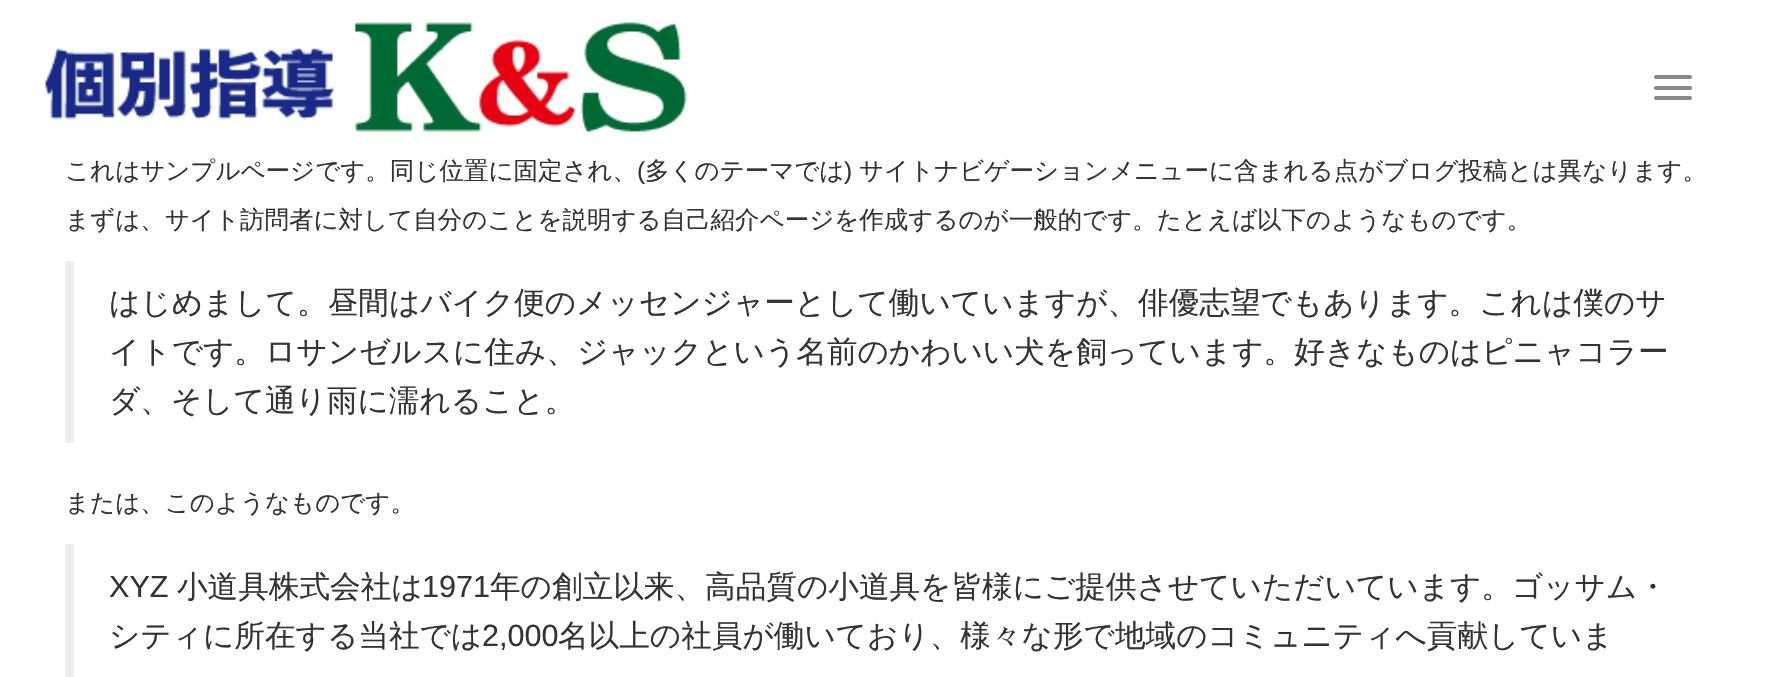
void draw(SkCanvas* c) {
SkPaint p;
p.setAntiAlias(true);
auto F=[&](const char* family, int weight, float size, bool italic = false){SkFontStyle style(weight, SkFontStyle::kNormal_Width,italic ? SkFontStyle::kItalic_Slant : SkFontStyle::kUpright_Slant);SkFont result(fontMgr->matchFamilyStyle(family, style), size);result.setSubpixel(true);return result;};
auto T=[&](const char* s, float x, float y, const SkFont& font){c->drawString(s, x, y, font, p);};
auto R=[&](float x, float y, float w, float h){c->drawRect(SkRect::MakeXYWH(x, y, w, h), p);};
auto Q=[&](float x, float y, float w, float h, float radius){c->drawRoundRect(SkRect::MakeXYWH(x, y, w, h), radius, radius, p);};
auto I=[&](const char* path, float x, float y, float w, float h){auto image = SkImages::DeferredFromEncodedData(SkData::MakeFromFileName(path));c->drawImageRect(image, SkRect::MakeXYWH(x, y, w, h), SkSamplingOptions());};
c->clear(0xffffffff);
I("1.png",45,22,642,110);
p.setColor(0xff888888);
Q(1654,75,38,4,2);
Q(1654,86,38,4,2);
Q(1654,96,38,4,2);
auto f1 = F("WenQuanYi Zen Hei",500,24.5);
p.setColor(0xff333333);
T("これはサンプルページです。同じ位置に固定され、",65,179,f1);
auto f2 = F("Liberation Sans",400,24.5);
T("(",637,179,f2);
T("多くのテーマでは",645,179,f1);
T(")",844,179,f2);
T("サイトナビゲーションメニューに含まれる点がブログ投稿とは異なります。",859,179,f1);
T("まずは、サイト訪問者に対して自分のことを説明する自己紹介ページを作成するのが一般的です。たとえば以下のようなものです。",65,228,f1);
p.setColor(0xffeeeeee);
R(65,261,9,182);
auto f3 = F("WenQuanYi Zen Hei",500,30.62);
p.setColor(0xff333333);
T("はじめまして。昼間はバイク便のメッセンジャーとして働いていますが、俳優志望でもあります。これは僕のサ",109,313,f3);
T("イトです。ロサンゼルスに住み、ジャックという名前のかわいい犬を飼っています。好きなものはピニャコラー",109,362,f3);
T("ダ、そして通り雨に濡れること。",109,411,f3);
T("または、このようなものです。",65,511,f1);
p.setColor(0xffeeeeee);
R(65,544,9,133);
auto f4 = F("Liberation Sans",400,30.62);
p.setColor(0xff333333);
T("XYZ",109,597,f4);
T("小道具株式会社は",177,597,f3);
T("1971",422,597,f4);
T("年の創立以来、高品質の小道具を皆様にご提供させていただいています。ゴッサム・",490,597,f3);
T("シティに所在する当社では",109,646,f3);
T("2,000",482,646,f4);
T("名以上の社員が働いており、様々な形で地域のコミュニティへ貢献していま",558,646,f3);
}
